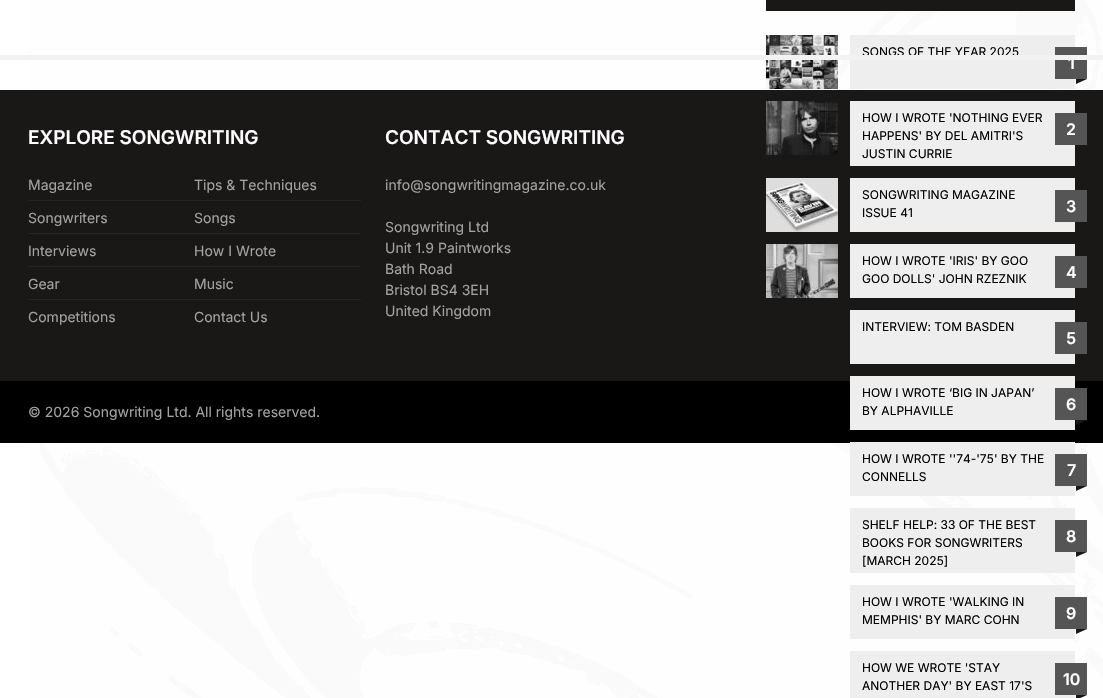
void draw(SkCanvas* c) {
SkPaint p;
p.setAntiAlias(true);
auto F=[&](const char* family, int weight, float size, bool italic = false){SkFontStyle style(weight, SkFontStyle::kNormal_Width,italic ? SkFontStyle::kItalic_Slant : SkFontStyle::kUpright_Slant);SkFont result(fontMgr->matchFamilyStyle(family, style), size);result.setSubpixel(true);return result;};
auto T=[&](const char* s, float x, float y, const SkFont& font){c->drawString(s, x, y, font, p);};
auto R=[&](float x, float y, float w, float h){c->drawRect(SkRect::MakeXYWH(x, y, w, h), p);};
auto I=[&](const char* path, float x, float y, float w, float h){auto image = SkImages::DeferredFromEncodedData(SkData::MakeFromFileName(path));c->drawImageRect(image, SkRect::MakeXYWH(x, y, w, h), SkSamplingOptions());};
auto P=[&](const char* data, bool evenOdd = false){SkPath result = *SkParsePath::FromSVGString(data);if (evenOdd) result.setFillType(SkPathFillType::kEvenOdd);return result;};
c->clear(0xffffffff);
I("1.png",28,0,1075,698);
p.setColor(0xff1a1717);
R(766,0,309,11);
I("2.png",766,35,72,54);
p.setColor(0xffeeeeee);
R(850,35,225,54);
auto f1 = F("Inter",400,12);
p.setColor(0xff000000);
T("SONGS OF THE YEAR 2025",862,56,f1);
p.setColor(0xff555555);
R(1055,47,32,32);
auto f2 = F("Inter",600,16);
p.setColor(0xffffffff);
T("1",1068,69,f2);
p.setColor(0xff1a1717);
c->drawPath(P("M1076 79h11l-11 5z"),p);
R(0,90,1103,291);
I("3.png",766,101,72,54);
p.setColor(0xffeeeeee);
R(850,101,225,65);
p.setColor(0xff000000);
T("HOW I WROTE 'NOTHING EVER",862,122,f1);
T("HAPPENS' BY DEL AMITRI'S",862,140,f1);
T("JUSTIN CURRIE",862,158,f1);
p.setColor(0xff555555);
R(1055,113,32,32);
p.setColor(0xffffffff);
T("2",1066,135,f2);
I("4.png",766,178,72,54);
p.setColor(0xffeeeeee);
R(850,178,225,54);
p.setColor(0xff000000);
T("SONGWRITING MAGAZINE",862,199,f1);
T("ISSUE 41",862,217,f1);
p.setColor(0xff555555);
R(1055,190,32,32);
p.setColor(0xffffffff);
T("3",1066,212,f2);
I("5.png",766,244,72,54);
p.setColor(0xffeeeeee);
R(850,244,225,54);
p.setColor(0xff000000);
T("HOW I WROTE 'IRIS' BY GOO",862,265,f1);
T("GOO DOLLS' JOHN RZEZNIK",862,283,f1);
p.setColor(0xff555555);
R(1055,256,32,32);
p.setColor(0xffffffff);
T("4",1066,278,f2);
p.setColor(0xffeeeeee);
R(850,310,225,54);
p.setColor(0xff000000);
T("INTERVIEW: TOM BASDEN",862,331,f1);
p.setColor(0xff555555);
R(1055,322,32,32);
p.setColor(0xffffffff);
T("5",1066,344,f2);
p.setColor(0xff000000);
R(0,381,1103,62);
p.setColor(0xffeeeeee);
R(850,376,225,54);
p.setColor(0xff000000);
T("HOW I WROTE ‘BIG IN JAPAN’",862,397,f1);
T("BY ALPHAVILLE",862,415,f1);
p.setColor(0xff555555);
R(1055,388,32,32);
p.setColor(0xffffffff);
T("6",1066,410,f2);
p.setColor(0xff1a1717);
c->drawPath(P("M1076 420h11l-11 5z"),p);
p.setColor(0xffeeeeee);
R(850,442,225,54);
p.setColor(0xff000000);
T("HOW I WROTE ''74-'75' BY THE",862,463,f1);
T("CONNELLS",862,481,f1);
p.setColor(0xff555555);
R(1055,454,32,32);
p.setColor(0xffffffff);
T("7",1067,476,f2);
p.setColor(0xff1a1717);
c->drawPath(P("M1076 486h11l-11 5z"),p);
p.setColor(0xffeeeeee);
R(850,508,225,65);
p.setColor(0xff000000);
T("SHELF HELP: 33 OF THE BEST",862,529,f1);
T("BOOKS FOR SONGWRITERS",862,547,f1);
T("[MARCH 2025]",862,565,f1);
p.setColor(0xff555555);
R(1055,520,32,32);
p.setColor(0xffffffff);
T("8",1066,542,f2);
p.setColor(0xff1a1717);
c->drawPath(P("M1076 552h11l-11 5z"),p);
p.setColor(0xffeeeeee);
R(850,585,225,54);
p.setColor(0xff000000);
T("HOW I WROTE 'WALKING IN",862,606,f1);
T("MEMPHIS' BY MARC COHN",862,624,f1);
p.setColor(0xff555555);
R(1055,597,32,32);
p.setColor(0xffffffff);
T("9",1066,619,f2);
p.setColor(0xff1a1717);
c->drawPath(P("M1076 629h11l-11 5z"),p);
p.setColor(0xffeeeeee);
R(850,651,225,47);
p.setColor(0xff000000);
T("HOW WE WROTE 'STAY",862,672,f1);
T("ANOTHER DAY' BY EAST 17'S",862,690,f1);
p.setColor(0xff555555);
R(1055,663,32,32);
p.setColor(0xffffffff);
T("10",1063,685,f2);
p.setColor(0xff1a1717);
c->drawPath(P("M1076 695h11l-11 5z"),p);
p.setColor(0xfff2f2f2);
R(0,55,1103,5);
auto f3 = F("Inter",600,19);
p.setColor(0xffffffff);
T("EXPLORE SONGWRITING",28,144,f3);
auto f4 = F("Inter",400,14);
p.setColor(0xffa6a1a1);
T("Magazine",28,190,f4);
T("Tips & Techniques",194,190,f4);
p.setColor(0xff262525);
R(28,200,333,1);
p.setColor(0xffa6a1a1);
T("Songwriters",28,223,f4);
T("Songs",194,223,f4);
p.setColor(0xff262525);
R(28,233,333,1);
p.setColor(0xffa6a1a1);
T("Interviews",28,256,f4);
T("How I Wrote",194,256,f4);
p.setColor(0xff262525);
R(28,266,333,1);
p.setColor(0xffa6a1a1);
T("Gear",28,289,f4);
T("Music",194,289,f4);
p.setColor(0xff262525);
R(28,299,333,1);
p.setColor(0xffa6a1a1);
T("Competitions",28,322,f4);
T("Contact Us",194,322,f4);
p.setColor(0xffffffff);
T("CONTACT SONGWRITING",385,144,f3);
p.setColor(0xffa6a1a1);
T("info@songwritingmagazine.co.uk",385,190,f4);
T("Songwriting Ltd",385,232,f4);
T("Unit 1.9 Paintworks",385,253,f4);
T("Bath Road",385,274,f4);
T("Bristol BS4 3EH",385,295,f4);
T("United Kingdom",385,316,f4);
T("© 2026 Songwriting Ltd. All rights reserved.",28,417,f4);
}
